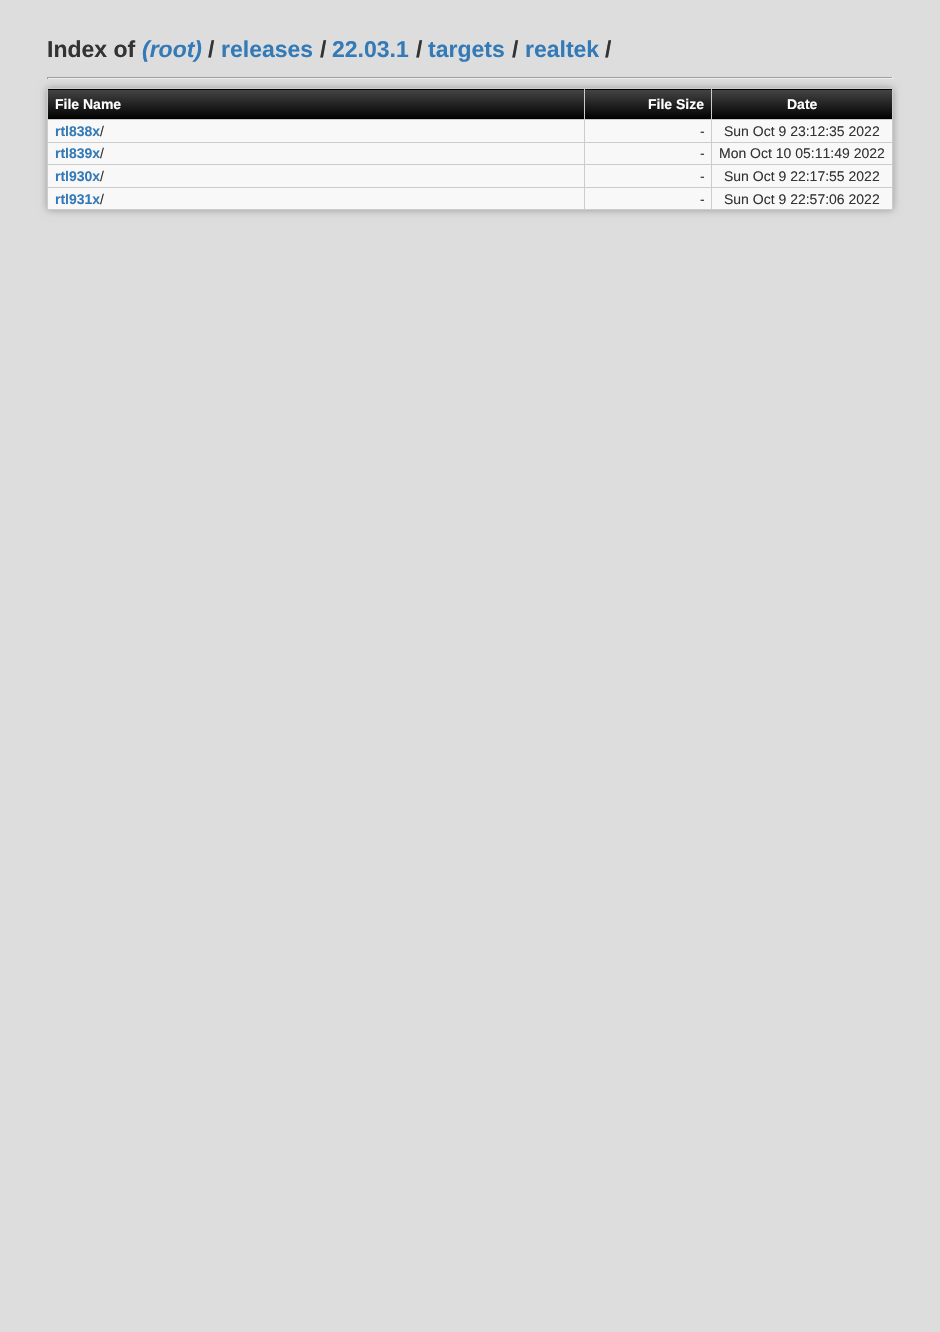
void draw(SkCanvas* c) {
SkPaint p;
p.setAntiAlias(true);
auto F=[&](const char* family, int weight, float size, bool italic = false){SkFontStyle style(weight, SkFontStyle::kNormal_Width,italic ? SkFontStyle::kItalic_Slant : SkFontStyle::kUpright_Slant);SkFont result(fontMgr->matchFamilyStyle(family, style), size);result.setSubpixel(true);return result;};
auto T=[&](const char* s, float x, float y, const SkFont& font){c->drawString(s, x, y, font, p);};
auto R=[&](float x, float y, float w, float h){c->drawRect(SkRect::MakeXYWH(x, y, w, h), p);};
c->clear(0xffdddddd);
auto f1 = F("Liberation Sans",700,23);
p.setColor(0xff333333);
T("Index of",47,57,f1);
auto f2 = F("Liberation Sans",700,23,true);
p.setColor(0xff337ab7);
T("(root)",142,57,f2);
p.setColor(0xff333333);
T("/",208,57,f1);
p.setColor(0xff337ab7);
T("releases",221,57,f1);
p.setColor(0xff333333);
T("/",320,57,f1);
p.setColor(0xff337ab7);
T("22.03.1",332,57,f1);
p.setColor(0xff333333);
T("/",416,57,f1);
p.setColor(0xff337ab7);
T("targets",428,57,f1);
p.setColor(0xff333333);
T("/",512,57,f1);
p.setColor(0xff337ab7);
T("realtek",525,57,f1);
p.setColor(0xff333333);
T("/",605,57,f1);
p.setColor(0xff999999);
p.setMaskFilter(SkMaskFilter::MakeBlur(kNormal_SkBlurStyle, 4));
c->drawRect(SkRect::MakeXYWH(47,88,846,122),p);
p.setMaskFilter(nullptr);
p.setColor(0xff9f9f9f);
R(47,77,846,1);
p.setColor(0xffeeeeee);
R(892,77,1,2);
R(47,78,846,1);
p.setColor(0xff9f9f9f);
R(47,77,1,2);
{
const SkColor colors[] = {0xff444444,0xff000000};
const float stops[] = {0,1};
const SkPoint ends[] = {{317,61}, {317,90}};
p.setShader(SkGradientShader::MakeLinear(ends, colors, stops, 2, SkTileMode::kClamp));
p.setAlpha(255);
}
R(48,89,537,1);
{
const SkColor colors[] = {0xff444444,0xff000000};
const float stops[] = {0,1};
const SkPoint ends[] = {{317,90}, {317,119}};
p.setShader(SkGradientShader::MakeLinear(ends, colors, stops, 2, SkTileMode::kClamp));
p.setAlpha(255);
}
R(48,90,536,29);
p.setShader(nullptr);
p.setColor(0xffcccccc);
R(711,88,182,1);
{
const SkColor colors[] = {0xff444444,0xff000000};
const float stops[] = {0,1};
const SkPoint ends[] = {{649,61}, {649,90}};
p.setShader(SkGradientShader::MakeLinear(ends, colors, stops, 2, SkTileMode::kClamp));
p.setAlpha(255);
}
R(585,89,127,1);
p.setShader(nullptr);
p.setColor(0xffcccccc);
R(711,119,182,1);
p.setColor(0xfff8f8f8);
R(48,120,844,22);
p.setColor(0xffcccccc);
R(711,142,182,1);
p.setColor(0xfff8f8f8);
R(48,143,844,21);
p.setColor(0xffcccccc);
R(711,164,182,1);
p.setColor(0xfff8f8f8);
R(48,165,844,22);
p.setColor(0xffcccccc);
R(711,187,182,1);
p.setColor(0xfff8f8f8);
R(48,188,844,21);
p.setColor(0xffcccccc);
R(892,187,1,23);
R(711,209,182,1);
R(711,187,1,23);
R(584,187,128,1);
R(711,164,1,24);
R(584,164,128,1);
R(711,142,1,23);
R(584,142,128,1);
R(711,119,1,24);
R(584,119,128,1);
R(711,88,1,32);
R(584,88,128,1);
R(584,209,128,1);
R(584,187,1,23);
R(47,187,538,1);
R(584,164,1,24);
R(47,164,538,1);
R(584,142,1,23);
R(47,142,538,1);
R(584,119,1,24);
R(47,119,538,1);
R(584,88,1,32);
R(47,88,538,1);
R(47,209,538,1);
R(47,187,1,23);
R(47,164,1,24);
R(47,142,1,23);
R(47,119,1,24);
R(47,88,1,32);
auto f3 = F("Liberation Sans",700,14);
p.setColor(0xffffffff);
T("File Name",55,109,f3);
{
const SkColor colors[] = {0xff444444,0xff000000};
const float stops[] = {0,1};
const SkPoint ends[] = {{649,90}, {649,119}};
p.setShader(SkGradientShader::MakeLinear(ends, colors, stops, 2, SkTileMode::kClamp));
p.setAlpha(255);
}
R(585,90,126,29);
p.setShader(nullptr);
p.setColor(0xffffffff);
T("File Size",648,109,f3);
{
const SkColor colors[] = {0xff444444,0xff000000};
const float stops[] = {0,1};
const SkPoint ends[] = {{803,61}, {803,90}};
p.setShader(SkGradientShader::MakeLinear(ends, colors, stops, 2, SkTileMode::kClamp));
p.setAlpha(255);
}
R(712,89,181,1);
{
const SkColor colors[] = {0xff444444,0xff000000};
const float stops[] = {0,1};
const SkPoint ends[] = {{803,90}, {803,119}};
p.setShader(SkGradientShader::MakeLinear(ends, colors, stops, 2, SkTileMode::kClamp));
p.setAlpha(255);
}
R(712,90,180,29);
p.setShader(nullptr);
p.setColor(0xffcccccc);
R(892,164,1,24);
R(892,142,1,23);
R(892,119,1,24);
R(892,88,1,32);
p.setColor(0xffffffff);
T("Date",787,109,f3);
p.setColor(0xff337ab7);
T("rtl838x",55,136,f3);
auto f4 = F("Liberation Sans",400,14);
p.setColor(0xff333333);
T("/",100,136,f4);
T("-",700,136,f4);
T("Sun Oct 9 23:12:35 2022",724,136,f4);
p.setColor(0xff337ab7);
T("rtl839x",55,158,f3);
p.setColor(0xff333333);
T("/",100,158,f4);
T("-",700,158,f4);
T("Mon Oct 10 05:11:49 2022",719,158,f4);
p.setColor(0xff337ab7);
T("rtl930x",55,181,f3);
p.setColor(0xff333333);
T("/",100,181,f4);
T("-",700,181,f4);
T("Sun Oct 9 22:17:55 2022",724,181,f4);
p.setColor(0xff337ab7);
T("rtl931x",55,204,f3);
p.setColor(0xff333333);
T("/",100,204,f4);
T("-",700,204,f4);
T("Sun Oct 9 22:57:06 2022",724,204,f4);
}
